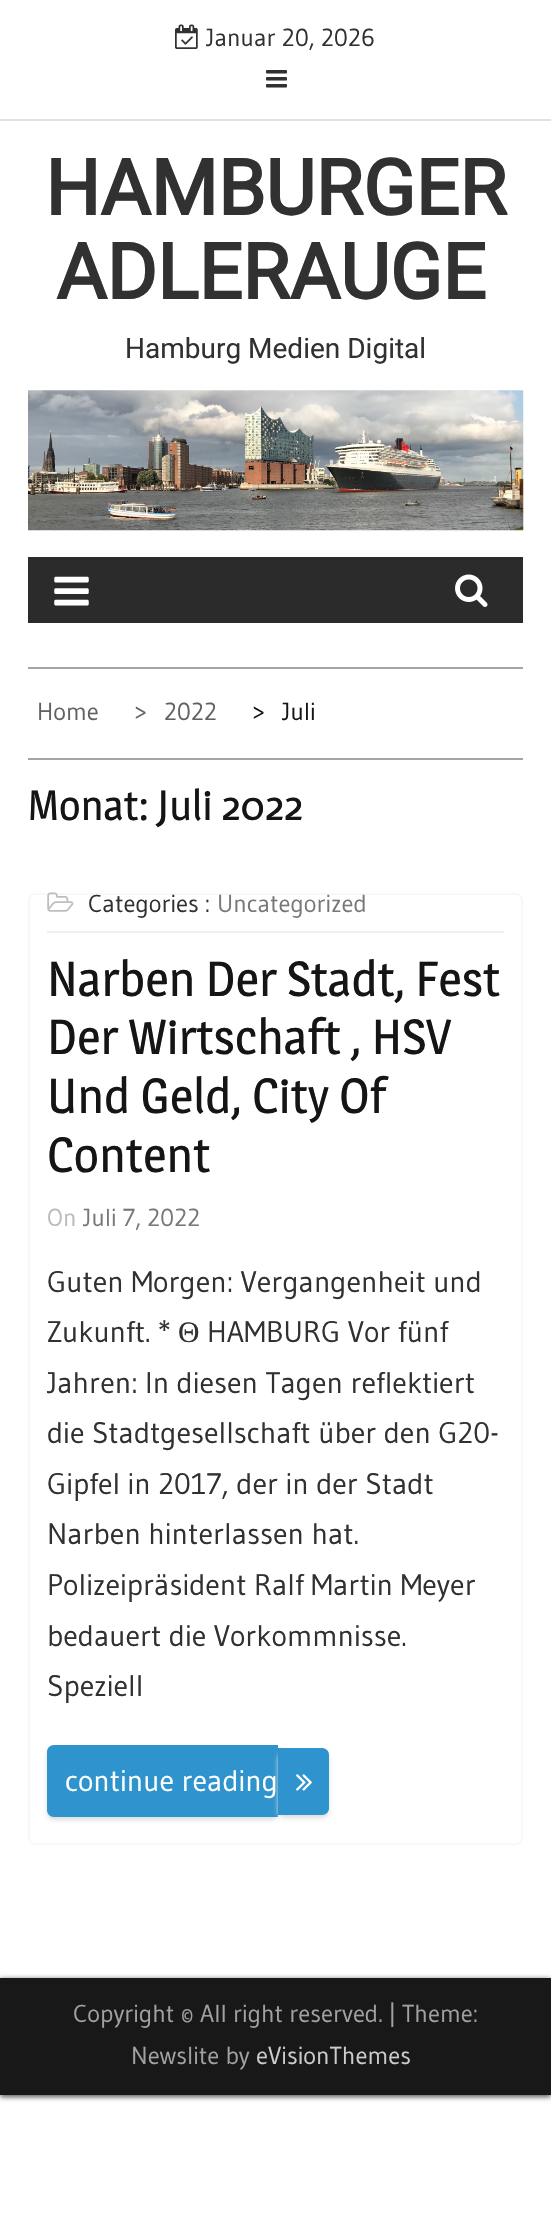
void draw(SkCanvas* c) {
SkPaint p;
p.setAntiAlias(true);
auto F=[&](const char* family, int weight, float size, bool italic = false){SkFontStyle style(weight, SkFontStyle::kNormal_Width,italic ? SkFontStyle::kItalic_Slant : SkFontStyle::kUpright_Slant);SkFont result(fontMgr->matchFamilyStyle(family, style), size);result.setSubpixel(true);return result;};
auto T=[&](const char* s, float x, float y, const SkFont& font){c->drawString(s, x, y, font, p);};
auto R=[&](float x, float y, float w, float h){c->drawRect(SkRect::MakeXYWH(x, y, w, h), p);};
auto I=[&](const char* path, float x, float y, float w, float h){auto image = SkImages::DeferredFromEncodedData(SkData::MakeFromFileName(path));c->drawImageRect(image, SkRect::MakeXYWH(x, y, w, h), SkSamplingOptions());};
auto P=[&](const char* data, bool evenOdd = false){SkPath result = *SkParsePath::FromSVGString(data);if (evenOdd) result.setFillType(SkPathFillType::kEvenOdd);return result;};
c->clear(0xffffffff);
p.setColor(0xffe2e2e2);
R(0,119,551,2);
I("1.png",175,24,23,25);
auto f1 = F("Gudea",400,24.5);
p.setColor(0xff313131);
T("Januar 20, 2026",206,46,f1);
I("2.png",266,70,21,18);
auto f2 = F("Roboto",700,77);
T("HAMBURGER",45,215,f2);
T("ADLERAUGE",56,299,f2);
auto f3 = F("Roboto",400,28);
T("Hamburg Medien Digital",125,358,f3);
I("3.png",28,390,496,141);
p.setColor(0xff2b2b2b);
R(28,557,495,66);
I("4.png",54,576,35,30);
I("5.png",455,574,33,33);
p.setColor(0xffa4a4a4);
R(28,667,495,2);
R(28,758,495,2);
p.setColor(0xff626262);
T("Home",37,720,f1);
T(">",134,720,f1);
T("2022",164,720,f1);
p.setColor(0xff151515);
T(">",252,720,f1);
T("Juli",282,720,f1);
auto f4 = F("Magra",400,42);
T("Monat: Juli 2022",28,820,f4);
p.setStroke(true);
p.setStrokeWidth(2);
p.setColor(0xfff8f8f8);
c->drawRoundRect(SkRect::MakeXYWH(29,894,493,950),6,6,p);
p.setStroke(false);
p.setColor(0xffefefef);
R(47,931,457,2);
I("6.png",47,892,27,20);
p.setColor(0xff313131);
T("Categories :",88,912,f1);
p.setColor(0xff787878);
T("Uncategorized",217,912,f1);
auto f5 = F("Magra",400,49);
p.setColor(0xff151515);
T("Narben Der Stadt, Fest",47,996,f5);
T("Der Wirtschaft , HSV",47,1054,f5);
T("Und Geld, City Of",47,1113,f5);
T("Content",47,1172,f5);
p.setColor(0xffbbbbbb);
T("On",47,1226,f1);
p.setColor(0xff787878);
T("Juli 7, 2022",83,1226,f1);
auto f6 = F("Gudea",400,29.75);
p.setColor(0xff313131);
T("Guten Morgen: Vergangenheit und",47,1292,f6);
T("Zukunft. *",47,1342,f6);
auto f7 = F("Liberation Serif",400,29.75);
T("Θ",178,1342,f7);
T("HAMBURG Vor fünf",207,1342,f6);
T("Jahren: In diesen Tagen reflektiert",47,1393,f6);
T("die Stadtgesellschaft über den G20-",47,1443,f6);
T("Gipfel in 2017, der in der Stadt",47,1494,f6);
T("Narben hinterlassen hat.",47,1544,f6);
T("Polizeipräsident Ralf Martin Meyer",47,1595,f6);
T("bedauert die Vorkommnisse.",47,1646,f6);
T("Speziell",47,1696,f6);
p.setColor(0xffdedede);
p.setMaskFilter(SkMaskFilter::MakeBlur(kNormal_SkBlurStyle, 2));
c->drawRoundRect(SkRect::MakeXYWH(47,1748,231,72),7,7,p);
p.setMaskFilter(nullptr);
p.setColor(0xff2f93cd);
c->drawPath(P("M54 1745h224v72h-224c-4 0-7-3-7-7v-58c0-4 3-7 7-7z"),p);
p.setColor(0xffdedede);
p.setMaskFilter(SkMaskFilter::MakeBlur(kNormal_SkBlurStyle, 2));
c->drawRoundRect(SkRect::MakeXYWH(278,1752,51,66),7,7,p);
p.setMaskFilter(nullptr);
p.setColor(0xffffffff);
T("continue reading",65,1791,f6);
p.setColor(0xff2f93cd);
c->drawPath(P("M278 1748h44c4 0 7 3 7 7v53c0 4-3 7-7 7h-44z"),p);
I("7.png",296,1774,16,17);
p.setColor(0xff585858);
p.setMaskFilter(SkMaskFilter::MakeBlur(kNormal_SkBlurStyle, 2.5));
c->drawRect(SkRect::MakeXYWH(0,1979,551,118),p);
p.setMaskFilter(nullptr);
p.setColor(0xff181818);
R(0,1978,551,117);
p.setColor(0xffa1a1a1);
T("Copyright © All right reserved. | Theme:",73,2022,f1);
T("Newslite by",131,2064,f1);
p.setColor(0xffcccccc);
T("eVisionThemes",256,2064,f1);
}
